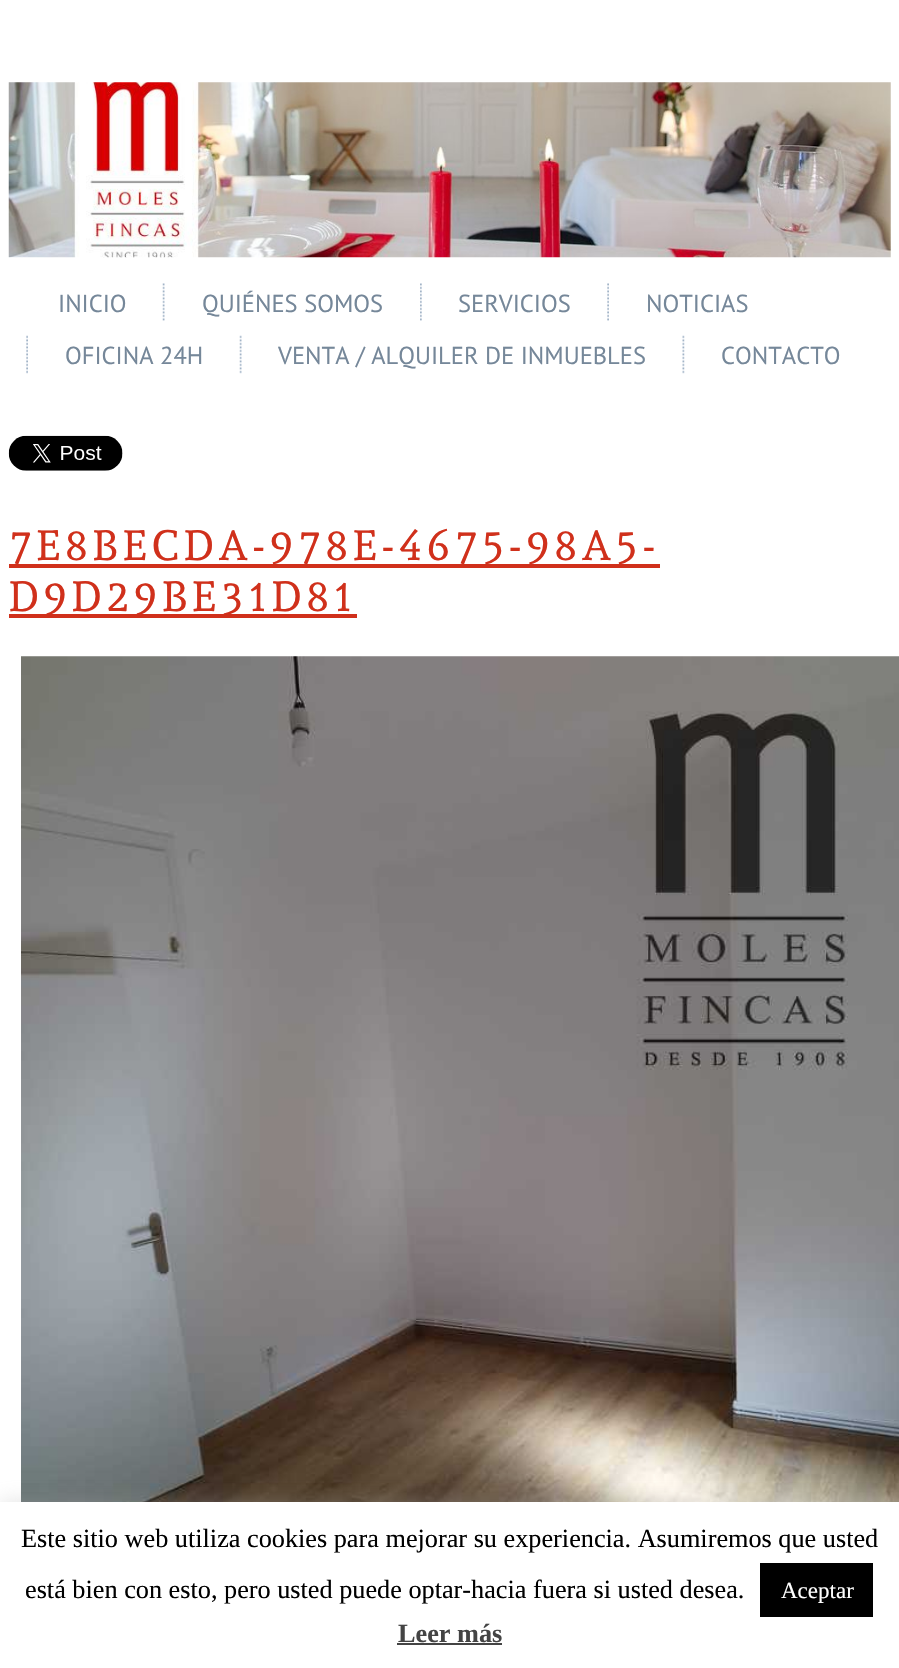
void draw(SkCanvas* c) {
SkPaint p;
p.setAntiAlias(true);
auto F=[&](const char* family, int weight, float size, bool italic = false){SkFontStyle style(weight, SkFontStyle::kNormal_Width,italic ? SkFontStyle::kItalic_Slant : SkFontStyle::kUpright_Slant);SkFont result(fontMgr->matchFamilyStyle(family, style), size);result.setSubpixel(true);return result;};
auto T=[&](const char* s, float x, float y, const SkFont& font){c->drawString(s, x, y, font, p);};
auto L=[&](const char* s, float x, float y, const SkFont& font, const SkPaint& ink, float letter, float word){std::vector<SkGlyphID> glyphs(font.countText(s, strlen(s), SkTextEncoding::kUTF8));std::vector<float> xs(glyphs.size());font.textToGlyphs(s, strlen(s), SkTextEncoding::kUTF8, glyphs);font.getXPos(glyphs, xs, x);float extra = 0;for (size_t i = 0; i < glyphs.size(); i++) {xs[i] += extra;extra += letter + word * (glyphs[i] == font.unicharToGlyph(' '));}c->drawTextBlob(SkTextBlob::MakeFromPosHGlyphs(glyphs, xs, y, font), 0, 0, ink);};
auto R=[&](float x, float y, float w, float h){c->drawRect(SkRect::MakeXYWH(x, y, w, h), p);};
auto I=[&](const char* path, float x, float y, float w, float h){auto image = SkImages::DeferredFromEncodedData(SkData::MakeFromFileName(path));c->drawImageRect(image, SkRect::MakeXYWH(x, y, w, h), SkSamplingOptions());};
c->clear(0xffffffff);
I("1.png",8,82,883,176);
auto f1 = F("PT Sans",400,24.5);
p.setColor(0xff758799);
T("INICIO",58,312,f1);
I("2.png",162,283,3,38);
T("QUIÉNES SOMOS",202,312,f1);
I("3.png",420,283,2,38);
T("SERVICIOS",458,312,f1);
I("4.png",607,283,2,38);
T("NOTICIAS",646,312,f1);
I("5.png",26,335,2,39);
T("OFICINA 24H",65,364,f1);
I("6.png",239,335,3,39);
T("VENTA / ALQUILER DE INMUEBLES",278,364,f1);
I("7.png",682,335,3,39);
T("CONTACTO",721,364,f1);
I("8.png",8,435,115,36);
p.setColor(0xffd0301b);
R(9,564,651,4);
auto f2 = F("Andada",400,42);
L("7E8BECDA-978E-4675-98A5-",9,560,f2,p,5.25,0);
R(9,614,348,4);
L("D9D29BE31D81",9,611,f2,p,5.25,0);
I("9.png",21,656,878,846);
p.setColor(0x4dacabab);
p.setMaskFilter(SkMaskFilter::MakeBlur(kNormal_SkBlurStyle, 9));
c->drawRect(SkRect::MakeXYWH(0,1500,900,168),p);
p.setMaskFilter(nullptr);
p.setColor(0xffffffff);
R(0,1502,899,166);
auto f3 = F("Liberation Serif",400,26.25);
p.setColor(0xff000000);
T("Este sitio web utiliza cookies para mejorar su experiencia. Asumiremos que usted",21,1547,f3);
T("está bien con esto, pero usted puede optar-hacia fuera si usted desea.",25,1598,f3);
R(760,1563,113,54);
auto f4 = F("Liberation Serif",400,23);
p.setColor(0xffffffff);
T("Aceptar",781,1598,f4);
auto f5 = F("Liberation Serif",700,26.25);
p.setColor(0xff444444);
T("Leer más",398,1642,f5);
R(397,1643,105,2);
}
